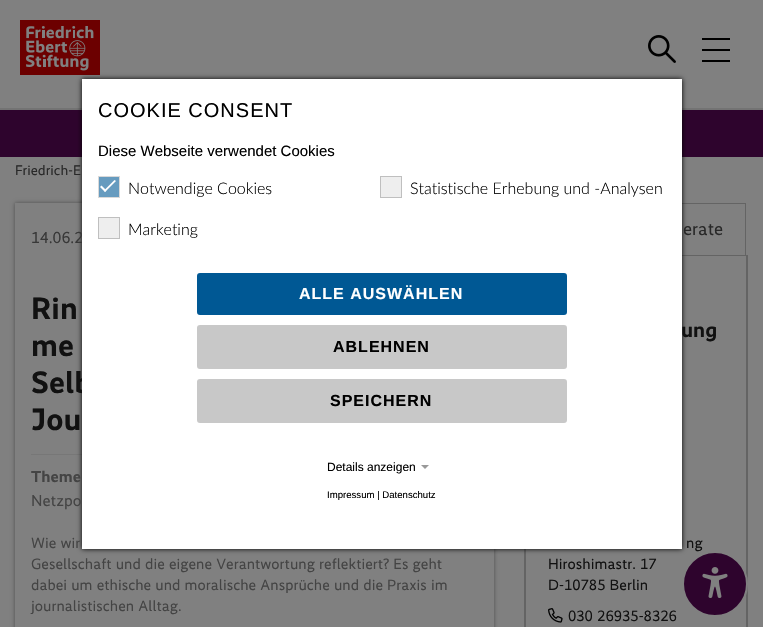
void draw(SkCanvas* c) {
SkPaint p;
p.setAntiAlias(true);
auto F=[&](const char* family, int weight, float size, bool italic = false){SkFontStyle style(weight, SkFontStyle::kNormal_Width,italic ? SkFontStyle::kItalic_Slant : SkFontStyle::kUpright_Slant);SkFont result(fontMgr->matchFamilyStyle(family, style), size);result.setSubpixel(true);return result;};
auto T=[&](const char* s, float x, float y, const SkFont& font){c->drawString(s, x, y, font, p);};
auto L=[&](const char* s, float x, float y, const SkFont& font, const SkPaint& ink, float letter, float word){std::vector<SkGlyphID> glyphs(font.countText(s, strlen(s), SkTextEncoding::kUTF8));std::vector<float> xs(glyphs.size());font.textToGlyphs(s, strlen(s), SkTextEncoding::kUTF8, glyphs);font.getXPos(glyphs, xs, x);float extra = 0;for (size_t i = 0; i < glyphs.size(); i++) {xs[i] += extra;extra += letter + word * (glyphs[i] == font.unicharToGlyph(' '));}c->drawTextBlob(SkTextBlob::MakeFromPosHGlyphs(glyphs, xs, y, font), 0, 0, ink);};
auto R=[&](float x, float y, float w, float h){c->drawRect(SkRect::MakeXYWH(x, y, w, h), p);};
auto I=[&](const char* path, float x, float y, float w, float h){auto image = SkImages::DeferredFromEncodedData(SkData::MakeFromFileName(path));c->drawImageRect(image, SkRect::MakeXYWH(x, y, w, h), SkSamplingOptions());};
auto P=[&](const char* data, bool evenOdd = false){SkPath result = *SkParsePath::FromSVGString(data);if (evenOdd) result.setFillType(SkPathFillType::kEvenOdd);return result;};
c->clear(0xff808080);
p.setColor(0xff737373);
R(0,108,763,2);
I("1.png",20,20,80,55);
I("2.png",648,35,28,28);
p.setColor(0xff000000);
R(702,38,28,2);
R(702,49,28,2);
R(702,60,28,2);
p.setColor(0xff2e042d);
R(0,110,763,47);
c->save();
c->clipPath(P("M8 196h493v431h-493zm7 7h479v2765h-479z",true),true);
p.setColor(0x66000000);
p.setMaskFilter(SkMaskFilter::MakeBlur(kNormal_SkBlurStyle, 2));
c->drawRect(SkRect::MakeXYWH(15,203,479,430),p);
p.setMaskFilter(nullptr);
c->restore();
p.setColor(0xff777777);
R(31,454,51,1);
p.setColor(0xff646464);
R(524,549,1,78);
R(682,203,64,1);
p.setStroke(true);
p.setStrokeWidth(1);
c->drawRect(SkRect::MakeXYWH(525.5,255.5,221,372),p);
p.setStroke(false);
R(747,255,1,372);
auto f1 = F("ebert",400,15);
p.setColor(0xff111111);
T("ng",686,548,f1);
p.setColor(0xff2e042d);
c->drawCircle(715,584,32,p);
p.setStroke(true);
p.setStrokeWidth(2);
p.setColor(0xff808080);
c->drawCircle(715,584,32,p);
p.setStroke(false);
p.setColor(0xff000000);
p.setMaskFilter(SkMaskFilter::MakeBlur(kNormal_SkBlurStyle, 2.5));
c->drawRect(SkRect::MakeXYWH(82,79,600,470),p);
p.setMaskFilter(nullptr);
auto f2 = F("ebert",400,16);
p.setColor(0xff383838);
T("14.06.2",31,243,f2);
auto f3 = F("ebert",700,31);
p.setColor(0xff111111);
T("Selb",31,393,f3);
p.setColor(0xffffffff);
R(82,79,600,470);
auto f4 = F("Liberation Sans",400,20);
p.setColor(0xff000000);
L("COOKIE CONSENT",98,117,f4,p,1,0);
auto f5 = F("Liberation Sans",400,15);
T("Diese Webseite verwendet Cookies",98,156,f5);
p.setColor(0xff669bbf);
c->drawRect(SkRect::MakeXYWH(98.5,176.5,21,21),p);
p.setStroke(true);
p.setStrokeWidth(1);
p.setColor(0xffd9d9d9);
c->drawRect(SkRect::MakeXYWH(98.5,176.5,21,21),p);
p.setStroke(false);
p.setColor(0xffffffff);
c->drawPath(P("M114.5 180l1.5 1l-11 11l-1-1.5z"),p);
c->drawPath(P("M101.5 185.5l5 5l-1.5 1.5l-5-5z"),p);
auto f6 = F("Lato",300,16);
p.setColor(0xff000000);
T("Notwendige Cookies",128,194,f6);
p.setColor(0xffeeeeee);
c->drawRect(SkRect::MakeXYWH(380.5,176.5,21,21),p);
p.setStroke(true);
p.setColor(0xffbfbfbf);
c->drawRect(SkRect::MakeXYWH(380.5,176.5,21,21),p);
p.setStroke(false);
p.setColor(0xff000000);
T("Statistische Erhebung und -Analysen",410,194,f6);
p.setColor(0xffeeeeee);
c->drawRect(SkRect::MakeXYWH(98.5,217.5,21,21),p);
p.setStroke(true);
p.setColor(0xffbfbfbf);
c->drawRect(SkRect::MakeXYWH(98.5,217.5,21,21),p);
p.setStroke(false);
p.setColor(0xff000000);
T("Marketing",128,235,f6);
p.setColor(0xff005894);
c->drawRoundRect(SkRect::MakeXYWH(198,274,368,40),2,2,p);
p.setStroke(true);
p.setStrokeWidth(2);
c->drawRoundRect(SkRect::MakeXYWH(198,274,368,40),2,2,p);
auto f7 = F("Liberation Sans",700,16);
p.setStroke(false);
p.setColor(0xffffffff);
L("ALLE AUSWÄHLEN",299,299,f7,p,1,0);
p.setColor(0xffc8c8c8);
c->drawRoundRect(SkRect::MakeXYWH(198.5,326.5,367,41),1.5,1.5,p);
p.setStroke(true);
p.setStrokeWidth(3);
c->drawRoundRect(SkRect::MakeXYWH(198.5,326.5,367,41),1.5,1.5,p);
p.setStroke(false);
p.setColor(0xff000000);
L("ABLEHNEN",333,352,f7,p,1,0);
p.setColor(0xffc8c8c8);
c->drawRoundRect(SkRect::MakeXYWH(198.5,380.5,367,41),1.5,1.5,p);
p.setStroke(true);
c->drawRoundRect(SkRect::MakeXYWH(198.5,380.5,367,41),1.5,1.5,p);
p.setStroke(false);
p.setColor(0xff000000);
L("SPEICHERN",330,406,f7,p,1,0);
auto f8 = F("Liberation Sans",400,12);
T("Details anzeigen",327,471,f8);
p.setColor(0xff999999);
c->drawPath(P("M421 465h8l-4 4z"),p);
auto f9 = F("Liberation Sans",400,9.6);
p.setColor(0xff000000);
T("Impressum | Datenschutz",327,498,f9);
auto f10 = F("ebert",400,14);
p.setColor(0xff282828);
T("Friedrich-E",15,175,f10);
p.setColor(0xff111111);
T("Rin",31,319,f3);
T("me",31,356,f3);
T("Jou",31,430,f3);
auto f11 = F("ebert",700,16);
p.setColor(0xff444444);
T("Theme",31,482,f11);
T("Netzpo",31,506,f2);
T("Wie wir",31,548,f1);
T("Gesellschaft und die eigene Verantwortung reflektiert? Es geht",31,569,f1);
T("dabei um ethische und moralische Ansprüche und die Praxis im",31,590,f1);
T("journalistischen Alltag.",31,611,f1);
p.setColor(0xff646464);
R(745,203,1,52);
auto f12 = F("ebert",400,18);
p.setColor(0xff282828);
T("erate",683,235,f12);
auto f13 = F("ebert",700,21);
p.setColor(0xff111111);
T("ung",681,337,f13);
T("Hiroshimastr. 17",548,569,f1);
T("D-10785 Berlin",548,590,f1);
I("3.png",548,608,15,15);
T("030 26935-8326",568,621,f1);
I("4.png",702,567,26,31);
}
